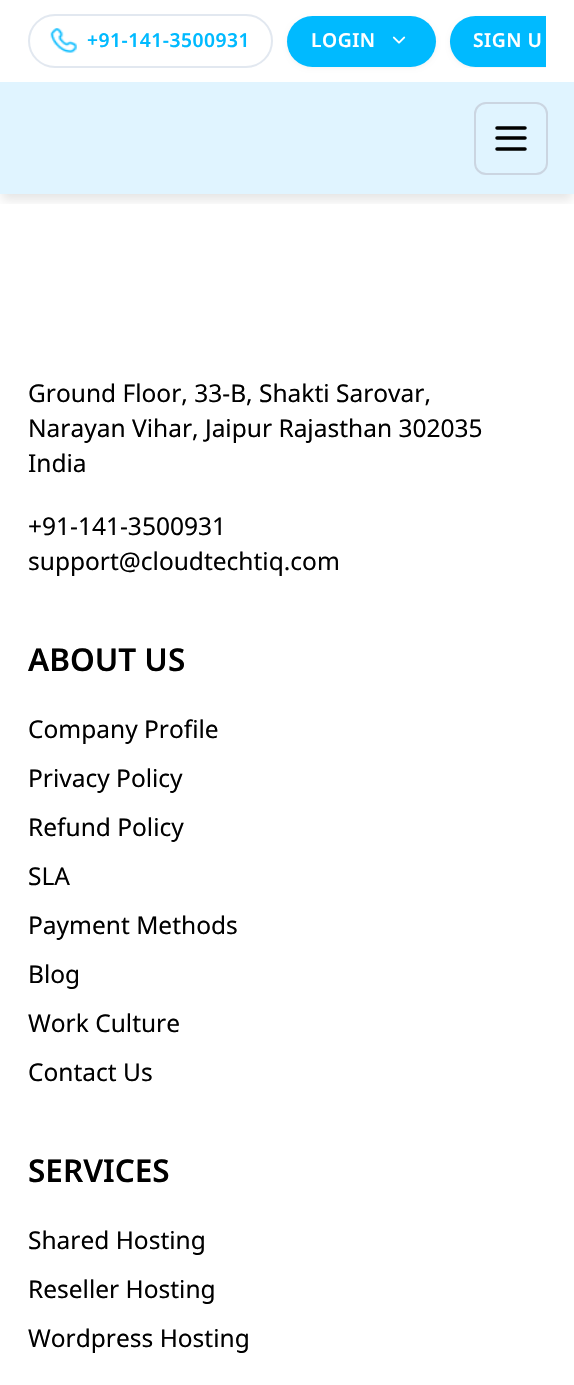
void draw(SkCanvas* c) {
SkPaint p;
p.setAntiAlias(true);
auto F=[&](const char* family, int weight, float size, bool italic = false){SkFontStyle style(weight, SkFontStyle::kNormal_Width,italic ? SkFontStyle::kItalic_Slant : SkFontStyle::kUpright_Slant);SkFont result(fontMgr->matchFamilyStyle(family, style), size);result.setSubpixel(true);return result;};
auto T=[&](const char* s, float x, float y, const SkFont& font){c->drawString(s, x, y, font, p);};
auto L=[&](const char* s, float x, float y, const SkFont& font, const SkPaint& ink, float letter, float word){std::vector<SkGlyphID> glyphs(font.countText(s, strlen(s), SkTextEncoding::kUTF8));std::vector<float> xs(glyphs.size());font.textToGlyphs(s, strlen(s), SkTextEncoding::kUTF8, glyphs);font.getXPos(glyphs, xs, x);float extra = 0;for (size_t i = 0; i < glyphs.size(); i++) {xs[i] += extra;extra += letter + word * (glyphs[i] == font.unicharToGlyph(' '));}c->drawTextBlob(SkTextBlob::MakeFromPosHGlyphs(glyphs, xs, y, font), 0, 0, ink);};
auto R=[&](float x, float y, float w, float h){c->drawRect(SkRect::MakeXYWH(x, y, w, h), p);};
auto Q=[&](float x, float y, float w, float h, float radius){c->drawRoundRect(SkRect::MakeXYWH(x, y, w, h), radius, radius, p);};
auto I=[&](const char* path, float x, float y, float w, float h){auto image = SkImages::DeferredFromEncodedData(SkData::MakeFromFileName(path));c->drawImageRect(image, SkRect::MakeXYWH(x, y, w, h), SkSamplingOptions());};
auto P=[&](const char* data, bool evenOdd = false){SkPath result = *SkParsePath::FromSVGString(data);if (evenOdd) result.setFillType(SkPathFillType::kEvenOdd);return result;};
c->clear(0xffffffff);
c->save();
c->clipRect(SkRect::MakeXYWH(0,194,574,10));
p.setColor(0x1a000000);
p.setMaskFilter(SkMaskFilter::MakeBlur(kNormal_SkBlurStyle, 5));
c->drawRect(SkRect::MakeXYWH(2,9,570,191),p);
p.setMaskFilter(nullptr);
c->restore();
p.setStroke(true);
p.setStrokeWidth(2);
p.setColor(0xffe2e8f0);
c->drawRoundRect(SkRect::MakeXYWH(29,15,243,52),26,26,p);
I("1.png",50,28,27,25);
auto f1 = F("Noto Sans",600,19.25);
p.setStroke(false);
p.setColor(0xff00baff);
L("+91-141-3500931",87,47,f1,p,.5,0);
p.setColor(0x0d000000);
p.setMaskFilter(SkMaskFilter::MakeBlur(kNormal_SkBlurStyle, 2));
c->drawRoundRect(SkRect::MakeXYWH(287,18,149,50),25,25,p);
p.setMaskFilter(nullptr);
p.setColor(0xff00baff);
Q(287,16,149,51,25.5);
p.setColor(0xffffffff);
L("LOGIN",311,47,f1,p,.5,0);
I("2.png",392,36,14,8);
c->save();
c->clipRect(SkRect::MakeXYWH(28,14,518,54));
p.setColor(0x0d000000);
p.setMaskFilter(SkMaskFilter::MakeBlur(kNormal_SkBlurStyle, 2));
c->drawRoundRect(SkRect::MakeXYWH(450,18,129,50),25,25,p);
p.setMaskFilter(nullptr);
c->restore();
p.setColor(0xff00baff);
c->drawPath(P("M475.5 16h70.5v51h-70.5c-14 0-25.5-11.5-25.5-25.5c0-14 11.5-25.5 25.5-25.5z"),p);
p.setColor(0xffffffff);
L("SIGN U",473,47,f1,p,.5,0);
p.setColor(0xffe0f4ff);
R(0,82,574,112);
p.setStroke(true);
p.setColor(0xffcbd5e1);
c->drawRoundRect(SkRect::MakeXYWH(475,103,72,71),11,11,p);
p.setStrokeWidth(3.5);
p.setStrokeCap(SkPaint::kRound_Cap);
p.setStrokeJoin(SkPaint::kRound_Join);
p.setColor(0xff000000);
c->drawPath(P("M497 128h28m-28 10h28m-28 11h28"),p);
auto f2 = F("Noto Sans",400,24.5);
p.setStroke(false);
T("Ground Floor, 33-B, Shakti Sarovar,",28,402,f2);
T("Narayan Vihar, Jaipur Rajasthan 302035",28,437,f2);
T("India",28,472,f2);
T("+91-141-3500931",28,535,f2);
T("support@cloudtechtiq.com",28,570,f2);
auto f3 = F("Noto Sans",600,31.5);
T("ABOUT US",28,671,f3);
T("Company Profile",28,738,f2);
T("Privacy Policy",28,787,f2);
T("Refund Policy",28,836,f2);
T("SLA",28,885,f2);
T("Payment Methods",28,934,f2);
T("Blog",28,983,f2);
T("Work Culture",28,1032,f2);
T("Contact Us",28,1081,f2);
T("SERVICES",28,1182,f3);
T("Shared Hosting",28,1249,f2);
T("Reseller Hosting",28,1298,f2);
T("Wordpress Hosting",28,1347,f2);
}
